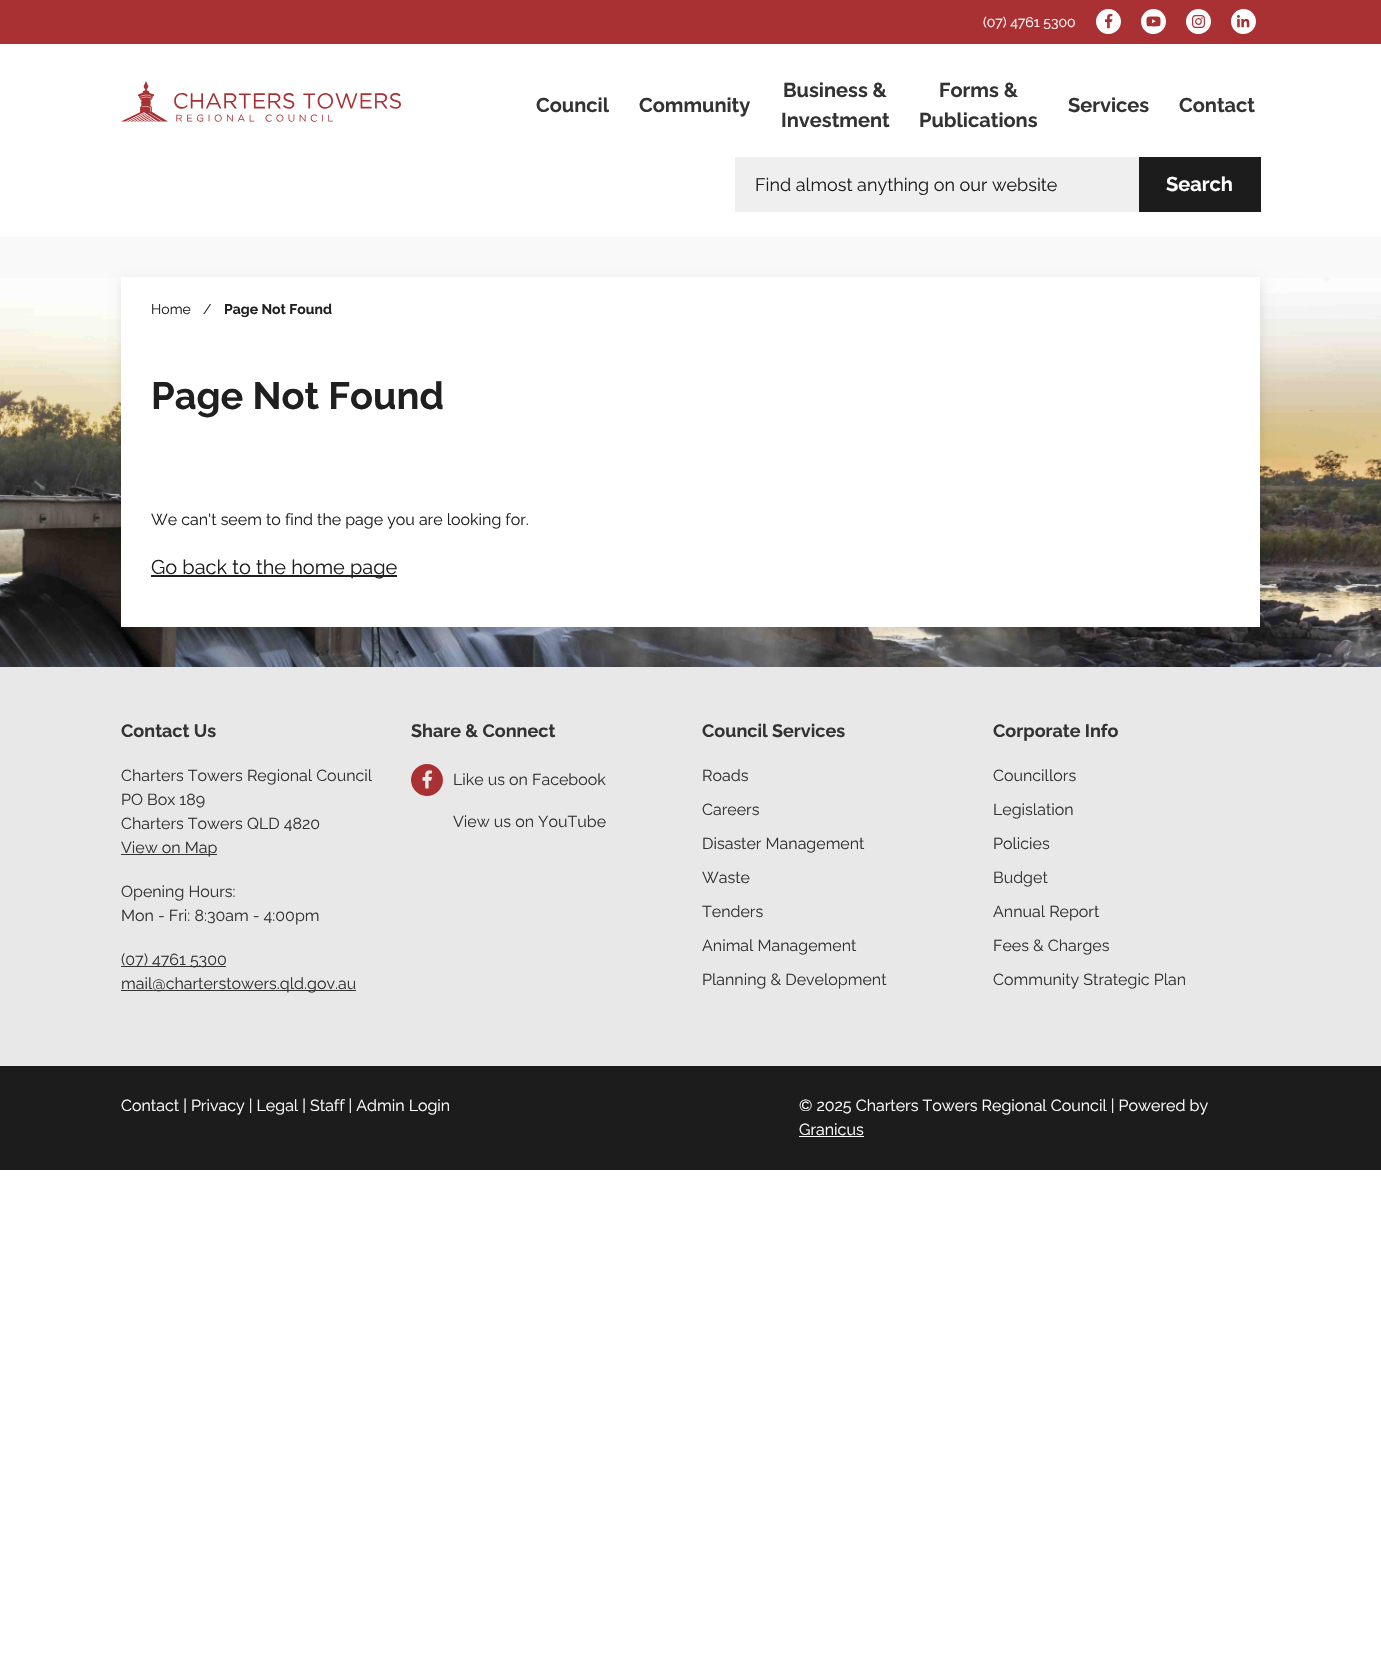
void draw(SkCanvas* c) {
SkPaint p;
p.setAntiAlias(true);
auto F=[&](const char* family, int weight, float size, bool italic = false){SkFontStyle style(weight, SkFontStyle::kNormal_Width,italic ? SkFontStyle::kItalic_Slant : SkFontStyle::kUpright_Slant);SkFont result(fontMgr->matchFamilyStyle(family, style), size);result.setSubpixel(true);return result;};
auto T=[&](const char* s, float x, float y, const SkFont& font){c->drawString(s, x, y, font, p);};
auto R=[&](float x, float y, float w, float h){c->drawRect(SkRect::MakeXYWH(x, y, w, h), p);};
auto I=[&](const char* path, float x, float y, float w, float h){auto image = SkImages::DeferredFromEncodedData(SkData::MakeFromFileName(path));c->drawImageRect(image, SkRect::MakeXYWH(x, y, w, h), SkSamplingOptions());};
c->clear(0xffffffff);
p.setColor(0xffa93134);
R(0,0,1381,44);
auto f1 = F("Raleway",400,14);
p.setColor(0xffffffff);
T("(07) 4761 5300",983,27,f1);
I("1.png",1096,9,25,25);
I("2.png",1141,9,25,25);
I("3.png",1186,9,25,25);
I("4.png",1231,9,25,25);
I("5.png",121,81,280,41);
auto f2 = F("Raleway",700,20);
p.setColor(0xff333333);
T("Council",536,112,f2);
T("Community",639,112,f2);
T("Business &",783,97,f2);
T("Investment",781,127,f2);
T("Forms &",939,97,f2);
T("Publications",919,127,f2);
T("Services",1068,112,f2);
T("Contact",1179,112,f2);
p.setColor(0xffefefef);
R(735,157,404,55);
auto f3 = F("Raleway",400,18);
p.setColor(0xff1f1f1f);
T("Find almost anything on our website",755,191,f3);
p.setColor(0xff1c1c1c);
R(1139,157,122,55);
p.setColor(0xffffffff);
T("Search",1166,191,f2);
p.setColor(0xfff9f9f9);
R(0,237,1381,41);
I("6.png",0,278,1381,389);
p.setColor(0x1a000000);
p.setMaskFilter(SkMaskFilter::MakeBlur(kNormal_SkBlurStyle, 5));
c->drawRect(SkRect::MakeXYWH(121,281,1140,350),p);
p.setMaskFilter(nullptr);
p.setColor(0xffffffff);
R(121,277,1139,350);
p.setColor(0xff1f1f1f);
T("Home",151,314,f1);
T("/",203,314,f1);
auto f4 = F("Raleway",700,14);
T("Page Not Found",224,314,f4);
auto f5 = F("Raleway",700,38);
T("Page Not Found",151,409,f5);
auto f6 = F("Raleway",400,16);
T("We can't seem to find the page you are looking for.",151,525,f6);
R(151,575,246,2);
auto f7 = F("Raleway",400,20);
T("Go back to the home page",151,574,f7);
p.setColor(0xffe8e8e8);
R(0,667,1381,399);
auto f8 = F("Raleway",700,18);
p.setColor(0xff333333);
T("Contact Us",121,737,f8);
T("Charters Towers Regional Council",121,781,f6);
T("PO Box 189",121,805,f6);
T("Charters Towers QLD 4820",121,829,f6);
R(121,854,96,1);
T("View on Map",121,853,f6);
T("Opening Hours:",121,897,f6);
T("Mon - Fri: 8:30am - 4:00pm",121,921,f6);
R(121,966,105,1);
T("(07) 4761 5300",121,965,f6);
R(121,990,235,1);
T("mail@charterstowers.qld.gov.au",121,989,f6);
T("Share & Connect",411,737,f8);
I("7.png",411,764,32,32);
T("Like us on Facebook",453,785,f6);
T("View us on YouTube",453,827,f6);
T("Council Services",702,737,f8);
T("Roads",702,781,f6);
T("Careers",702,815,f6);
T("Disaster Management",702,849,f6);
T("Waste",702,883,f6);
T("Tenders",702,917,f6);
T("Animal Management",702,951,f6);
T("Planning & Development",702,985,f6);
T("Corporate Info",993,737,f8);
T("Councillors",993,781,f6);
T("Legislation",993,815,f6);
T("Policies",993,849,f6);
T("Budget",993,883,f6);
T("Annual Report",993,917,f6);
T("Fees & Charges",993,951,f6);
T("Community Strategic Plan",993,985,f6);
p.setColor(0xff1c1c1c);
R(0,1066,1381,104);
p.setColor(0xffffffff);
T("Contact | Privacy | Legal | Staff | Admin Login",121,1111,f6);
T("© 2025 Charters Towers Regional Council | Powered by",799,1111,f6);
T("Granicus",799,1135,f6);
R(799,1136,65,1);
}
